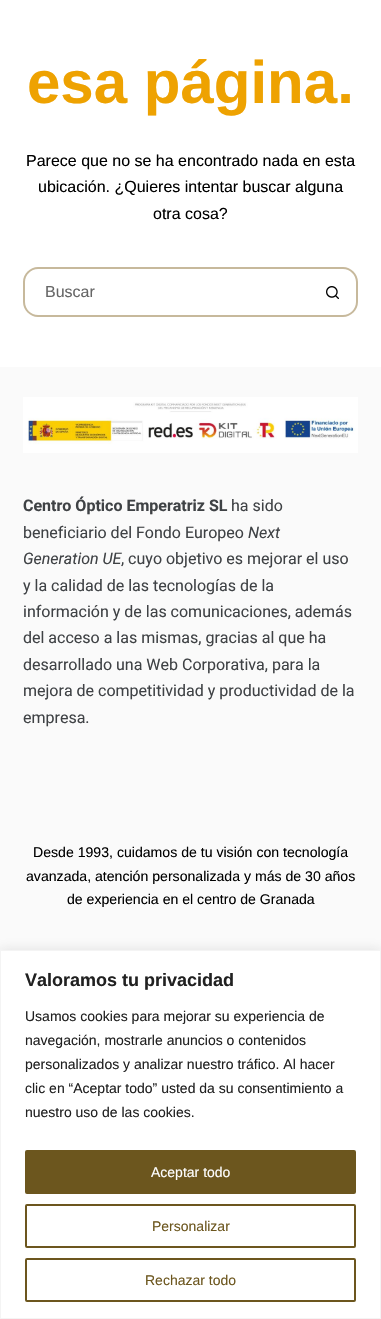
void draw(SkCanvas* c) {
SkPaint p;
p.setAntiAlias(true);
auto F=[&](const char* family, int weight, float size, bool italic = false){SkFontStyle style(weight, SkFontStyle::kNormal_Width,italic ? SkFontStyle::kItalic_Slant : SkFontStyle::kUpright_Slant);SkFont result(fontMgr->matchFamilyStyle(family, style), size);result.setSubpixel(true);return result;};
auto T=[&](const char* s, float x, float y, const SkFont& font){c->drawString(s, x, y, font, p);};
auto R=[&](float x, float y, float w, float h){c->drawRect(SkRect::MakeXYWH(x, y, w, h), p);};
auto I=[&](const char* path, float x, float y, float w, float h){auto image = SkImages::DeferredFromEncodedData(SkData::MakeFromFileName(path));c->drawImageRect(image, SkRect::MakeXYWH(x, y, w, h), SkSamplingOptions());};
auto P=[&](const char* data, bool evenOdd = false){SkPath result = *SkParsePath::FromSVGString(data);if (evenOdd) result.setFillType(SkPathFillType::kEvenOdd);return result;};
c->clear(0xffffffff);
auto f1 = F("Liberation Sans",700,60);
p.setColor(0xffeea201);
T("esa página.",27,103,f1);
auto f2 = F("Liberation Sans",400,16);
p.setColor(0xff000000);
T("Parece que no se ha encontrado nada en esta",26,166,f2);
T("ubicación. ¿Quieres intentar buscar alguna",38,192,f2);
T("otra cosa?",153,219,f2);
p.setColor(0xffc7b99c);
c->drawPath(P("M38 267h270v50h-270c-8 0-15-7-15-15v-20c0-8 7-15 15-15zm0 2h270v46h-270c-7 0-13-6-13-13v-20c0-7 6-13 13-13z",true),p);
p.setColor(0xff666666);
T("Buscar",45,297,f2);
p.setColor(0xffc7b99c);
c->drawPath(P("M308 267h35c8 0 15 7 15 15v20c0 8-7 15-15 15h-35zm0 2h35c7 0 13 6 13 13v20c0 7-6 13-13 13h-35z",true),p);
I("1.png",326,286,13,13);
p.setColor(0xfffafafa);
R(0,367,381,583);
I("2.png",23,397,335,56);
auto f3 = F("Roboto",700,16);
p.setColor(0xff3f4245);
T("Centro Óptico Emperatriz SL",23,511,f3);
auto f4 = F("Roboto",400,16);
T("ha sido",231,511,f4);
T("beneficiario del Fondo Europeo",23,538,f4);
auto f5 = F("Roboto",400,16,true);
T("Next",248,538,f5);
T("Generation UE",23,564,f5);
T(", cuyo objetivo es mejorar el uso",121,564,f4);
T("y la calidad de las tecnologías de la",23,591,f4);
T("información y de las comunicaciones, además",23,617,f4);
T("del acceso a las mismas, gracias al que ha",23,643,f4);
T("desarrollado una Web Corporativa, para la",23,670,f4);
T("mejora de competitividad y productividad de la",23,696,f4);
T("empresa.",23,723,f4);
auto f6 = F("Liberation Sans",400,14.1);
p.setColor(0xff000000);
T("Desde 1993, cuidamos de tu visión con tecnología",33,857,f6);
T("avanzada, atención personalizada y más de 30 años",26,881,f6);
T("de experiencia en el centro de Granada",67,904,f6);
p.setColor(0x4dacabab);
p.setMaskFilter(SkMaskFilter::MakeBlur(kNormal_SkBlurStyle, 5));
c->drawRect(SkRect::MakeXYWH(0,949,381,369),p);
p.setMaskFilter(nullptr);
p.setColor(0xffffffff);
c->drawRect(SkRect::MakeXYWH(.5,950.5,380,368),p);
p.setStroke(true);
p.setStrokeWidth(1);
p.setColor(0xfff4f4f4);
c->drawRect(SkRect::MakeXYWH(.5,950.5,380,368),p);
auto f7 = F("Liberation Sans",700,18);
p.setStroke(false);
p.setColor(0xff212121);
T("Valoramos tu privacidad",25,986,f7);
auto f8 = F("Liberation Sans",400,14);
T("Usamos cookies para mejorar su experiencia de",25,1021,f8);
T("navegación, mostrarle anuncios o contenidos",25,1045,f8);
T("personalizados y analizar nuestro tráfico. Al hacer",25,1069,f8);
T("clic en “Aceptar todo” usted da su consentimiento a",25,1093,f8);
T("nuestro uso de las cookies.",25,1117,f8);
p.setColor(0xff6c561e);
c->drawRoundRect(SkRect::MakeXYWH(26,1151,329,42),1,1,p);
p.setStroke(true);
p.setStrokeWidth(2);
c->drawRoundRect(SkRect::MakeXYWH(26,1151,329,42),1,1,p);
p.setStroke(false);
p.setColor(0xffffffff);
T("Aceptar todo",151,1177,f8);
p.setStroke(true);
p.setColor(0xff6c561e);
c->drawRoundRect(SkRect::MakeXYWH(26,1205,329,42),1,1,p);
p.setStroke(false);
T("Personalizar",152,1231,f8);
p.setStroke(true);
c->drawRoundRect(SkRect::MakeXYWH(26,1259,329,42),1,1,p);
p.setStroke(false);
T("Rechazar todo",145,1285,f8);
}
